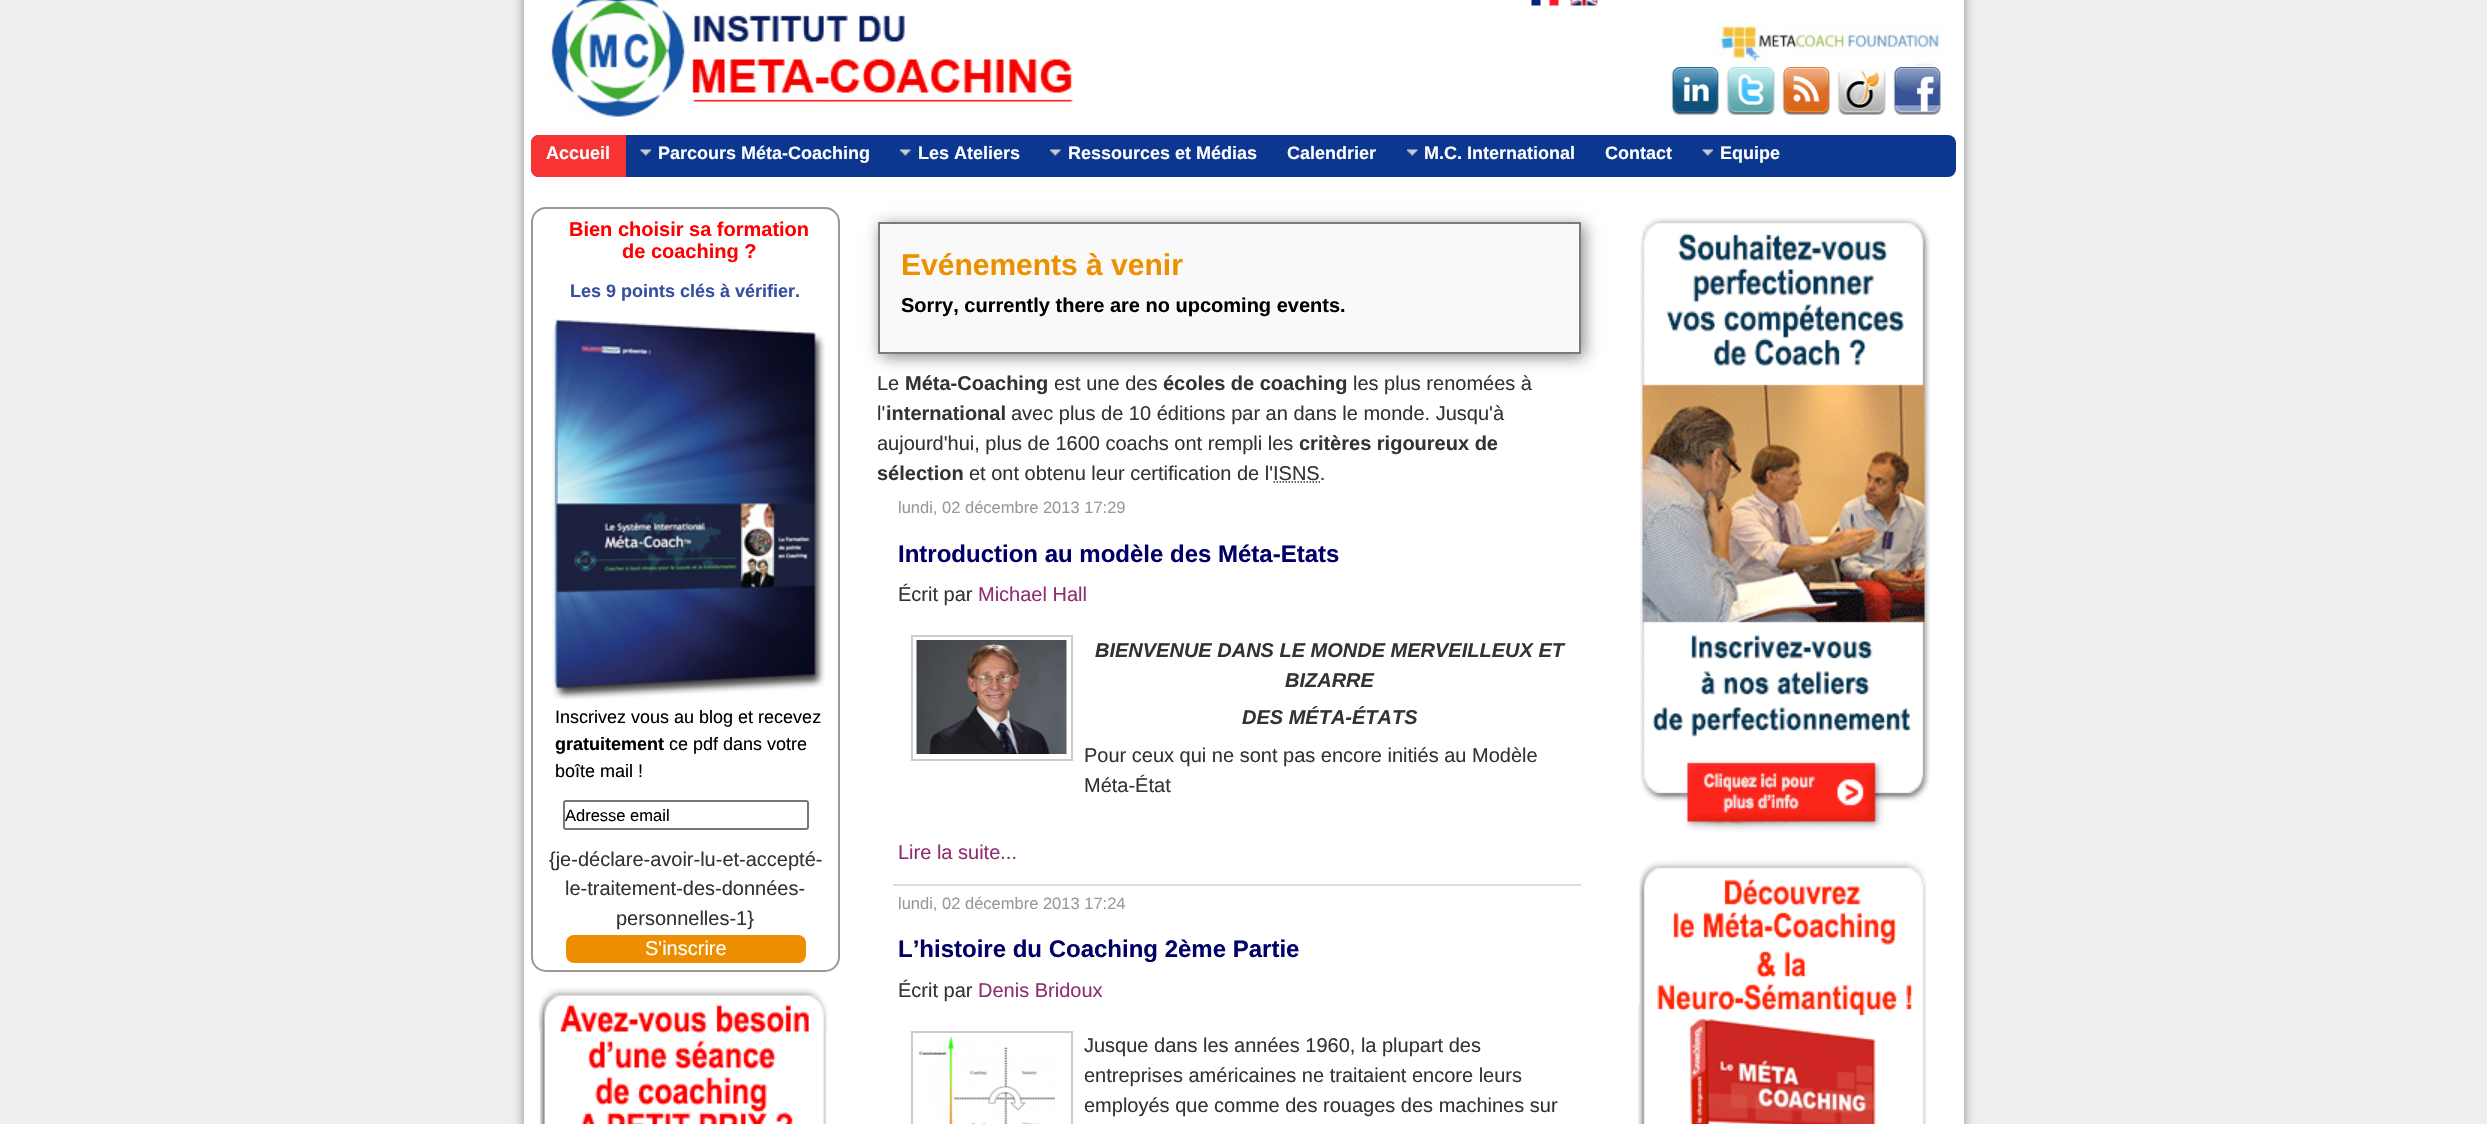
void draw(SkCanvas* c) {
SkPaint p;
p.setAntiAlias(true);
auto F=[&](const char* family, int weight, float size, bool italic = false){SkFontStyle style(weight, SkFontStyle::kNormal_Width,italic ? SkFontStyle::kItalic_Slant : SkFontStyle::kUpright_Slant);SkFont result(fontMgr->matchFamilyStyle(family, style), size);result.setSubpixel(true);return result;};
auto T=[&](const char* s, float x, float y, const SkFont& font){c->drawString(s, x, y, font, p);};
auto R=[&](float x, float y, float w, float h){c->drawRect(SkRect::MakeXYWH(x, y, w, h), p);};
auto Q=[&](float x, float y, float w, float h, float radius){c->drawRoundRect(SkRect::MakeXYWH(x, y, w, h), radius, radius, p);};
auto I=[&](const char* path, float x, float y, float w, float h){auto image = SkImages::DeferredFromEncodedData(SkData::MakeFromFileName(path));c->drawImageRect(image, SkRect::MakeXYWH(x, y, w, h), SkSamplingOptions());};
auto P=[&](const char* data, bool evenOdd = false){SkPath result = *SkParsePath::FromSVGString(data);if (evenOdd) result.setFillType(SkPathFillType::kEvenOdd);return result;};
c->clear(0xffefefef);
p.setColor(0xff888888);
p.setMaskFilter(SkMaskFilter::MakeBlur(kNormal_SkBlurStyle, 5));
c->drawRect(SkRect::MakeXYWH(524,-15,1440,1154),p);
p.setMaskFilter(nullptr);
p.setColor(0xffffffff);
R(524,0,1440,1124);
I("1.png",548,0,526,118);
I("2.png",1531,0,28,6);
I("3.png",1570,0,28,6);
I("4.png",1716,22,225,45);
I("5.png",1671,67,48,48);
I("6.png",1726,67,49,48);
I("7.png",1782,67,48,48);
I("8.png",1837,67,49,48);
I("9.png",1893,67,48,48);
p.setColor(0xff0b3790);
Q(531,135,1425,42,8);
p.setColor(0xfff73333);
c->drawPath(P("M539 135h87v42h-87c-4.5 0-8-3.5-8-8v-26c0-4.5 3.5-8 8-8z"),p);
auto f1 = F("Liberation Sans",700,18);
p.setColor(0xffffffff);
T("Accueil",546,159,f1);
I("10.png",640,149,11,7);
T("Parcours Méta-Coaching",658,159,f1);
I("11.png",900,149,11,7);
T("Les Ateliers",918,159,f1);
I("12.png",1050,149,11,7);
T("Ressources et Médias",1068,159,f1);
T("Calendrier",1287,159,f1);
I("11.png",1407,149,11,7);
T("M.C. International",1424,159,f1);
T("Contact",1605,159,f1);
I("13.png",1702,149,11,7);
T("Equipe",1720,159,f1);
p.setStroke(true);
p.setStrokeWidth(2);
p.setColor(0xff999999);
c->drawRoundRect(SkRect::MakeXYWH(532,208,307,763),14,14,p);
auto f2 = F("Liberation Sans",700,20);
p.setStroke(false);
p.setColor(0xffff0000);
T("Bien choisir sa formation",569,236,f2);
T("de coaching ?",622,258,f2);
p.setColor(0xff344fa1);
T("Les 9 points clés à vérifier.",570,297,f1);
I("14.png",552,319,273,381);
auto f3 = F("Liberation Sans",400,18);
p.setColor(0xff000000);
T("Inscrivez vous au blog et recevez",555,723,f3);
T("gratuitement",555,750,f1);
T("ce pdf dans votre",669,750,f3);
T("boîte mail !",555,777,f3);
p.setStroke(true);
p.setColor(0xff767676);
c->drawRoundRect(SkRect::MakeXYWH(564,801,244,28),2,2,p);
auto f4 = F("Liberation Sans",400,16.5);
p.setStroke(false);
p.setColor(0xff000000);
T("Adresse email",565,821,f4);
auto f5 = F("Liberation Sans",400,20);
p.setColor(0xff333333);
T("{je-déclare-avoir-lu-et-accepté-",549,866,f5);
T("le-traitement-des-données-",565,895,f5);
T("personnelles-1}",616,925,f5);
p.setColor(0xffed8e00);
Q(566,935,240,28,8);
p.setColor(0xffffffff);
T("S'inscrire",645,955,f5);
I("15.png",538,987,290,137);
p.setColor(0xff888888);
p.setMaskFilter(SkMaskFilter::MakeBlur(kNormal_SkBlurStyle, 7.5));
c->drawRect(SkRect::MakeXYWH(881,225,703,132),p);
p.setMaskFilter(nullptr);
p.setColor(0xfff9f9f9);
c->drawRect(SkRect::MakeXYWH(879,223,701,130),p);
p.setStroke(true);
p.setColor(0xff787b84);
c->drawRect(SkRect::MakeXYWH(879,223,701,130),p);
auto f6 = F("Liberation Sans",700,30);
p.setStroke(false);
p.setColor(0xffed9000);
T("Evénements à venir",901,275,f6);
p.setColor(0xff000000);
T("Sorry, currently there are no upcoming events.",901,312,f2);
p.setColor(0xff333333);
T("Le",877,390,f5);
T("Méta-Coaching",905,390,f2);
T("est une des",1054,390,f5);
T("écoles de coaching",1163,390,f2);
T("les plus renomées à",1353,390,f5);
T("l'",877,420,f5);
T("international",886,420,f2);
T("avec plus de 10 éditions par an dans le monde. Jusqu'à",1011,420,f5);
T("aujourd'hui, plus de 1600 coachs ont rempli les",877,450,f5);
T("critères rigoureux de",1299,450,f2);
T("sélection",877,480,f2);
T("et ont obtenu leur certification de l'ISNS.",969,480,f5);
p.setStroke(true);
p.setStrokeWidth(1.5);
p.setPathEffect(SkDashPathEffect::Make({{1.5f,1.5f}}, 0));
c->drawPath(P("M1273.5 482h46.5"),p);
p.setPathEffect(nullptr);
p.setStroke(false);
p.setColor(0xffdddddd);
R(893,884,688,2);
p.setColor(0xff999999);
T("lundi, 02 décembre 2013 17:29",898,513,f4);
auto f7 = F("Liberation Sans",700,24);
p.setColor(0xff000066);
T("Introduction au modèle des Méta-Etats",898,562,f7);
p.setColor(0xff333333);
T("Écrit par",898,601,f5);
p.setColor(0xff8e2e72);
T("Michael Hall",978,601,f5);
p.setStroke(true);
p.setStrokeWidth(2);
p.setColor(0xffcccccc);
c->drawRect(SkRect::MakeXYWH(912,636,160,124),p);
I("16.png",916,640,151,114);
auto f8 = F("Liberation Sans",700,20,true);
p.setStroke(false);
p.setColor(0xff333333);
T("BIENVENUE DANS LE MONDE MERVEILLEUX ET",1095,657,f8);
T("BIZARRE",1285,687,f8);
T("DES MÉTA-ÉTATS",1242,724,f8);
T("Pour ceux qui ne sont pas encore initiés au Modèle",1084,762,f5);
T("Méta-État",1084,792,f5);
p.setColor(0xff8e2e72);
T("Lire la suite...",898,859,f5);
p.setColor(0xff999999);
T("lundi, 02 décembre 2013 17:24",898,909,f4);
p.setColor(0xff000066);
T("L’histoire du Coaching 2ème Partie",898,957,f7);
p.setColor(0xff333333);
T("Écrit par",898,997,f5);
p.setColor(0xff8e2e72);
T("Denis Bridoux",978,997,f5);
p.setStroke(true);
p.setColor(0xffcccccc);
c->drawRect(SkRect::MakeXYWH(912,1032,160,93),p);
I("17.png",918,1036,137,88);
p.setStroke(false);
p.setColor(0xff333333);
T("Jusque dans les années 1960, la plupart des",1084,1052,f5);
T("entreprises américaines ne traitaient encore leurs",1084,1082,f5);
T("employés que comme des rouages des machines sur",1084,1112,f5);
I("18.png",1640,217,290,615);
I("19.png",1638,860,289,264);
}
